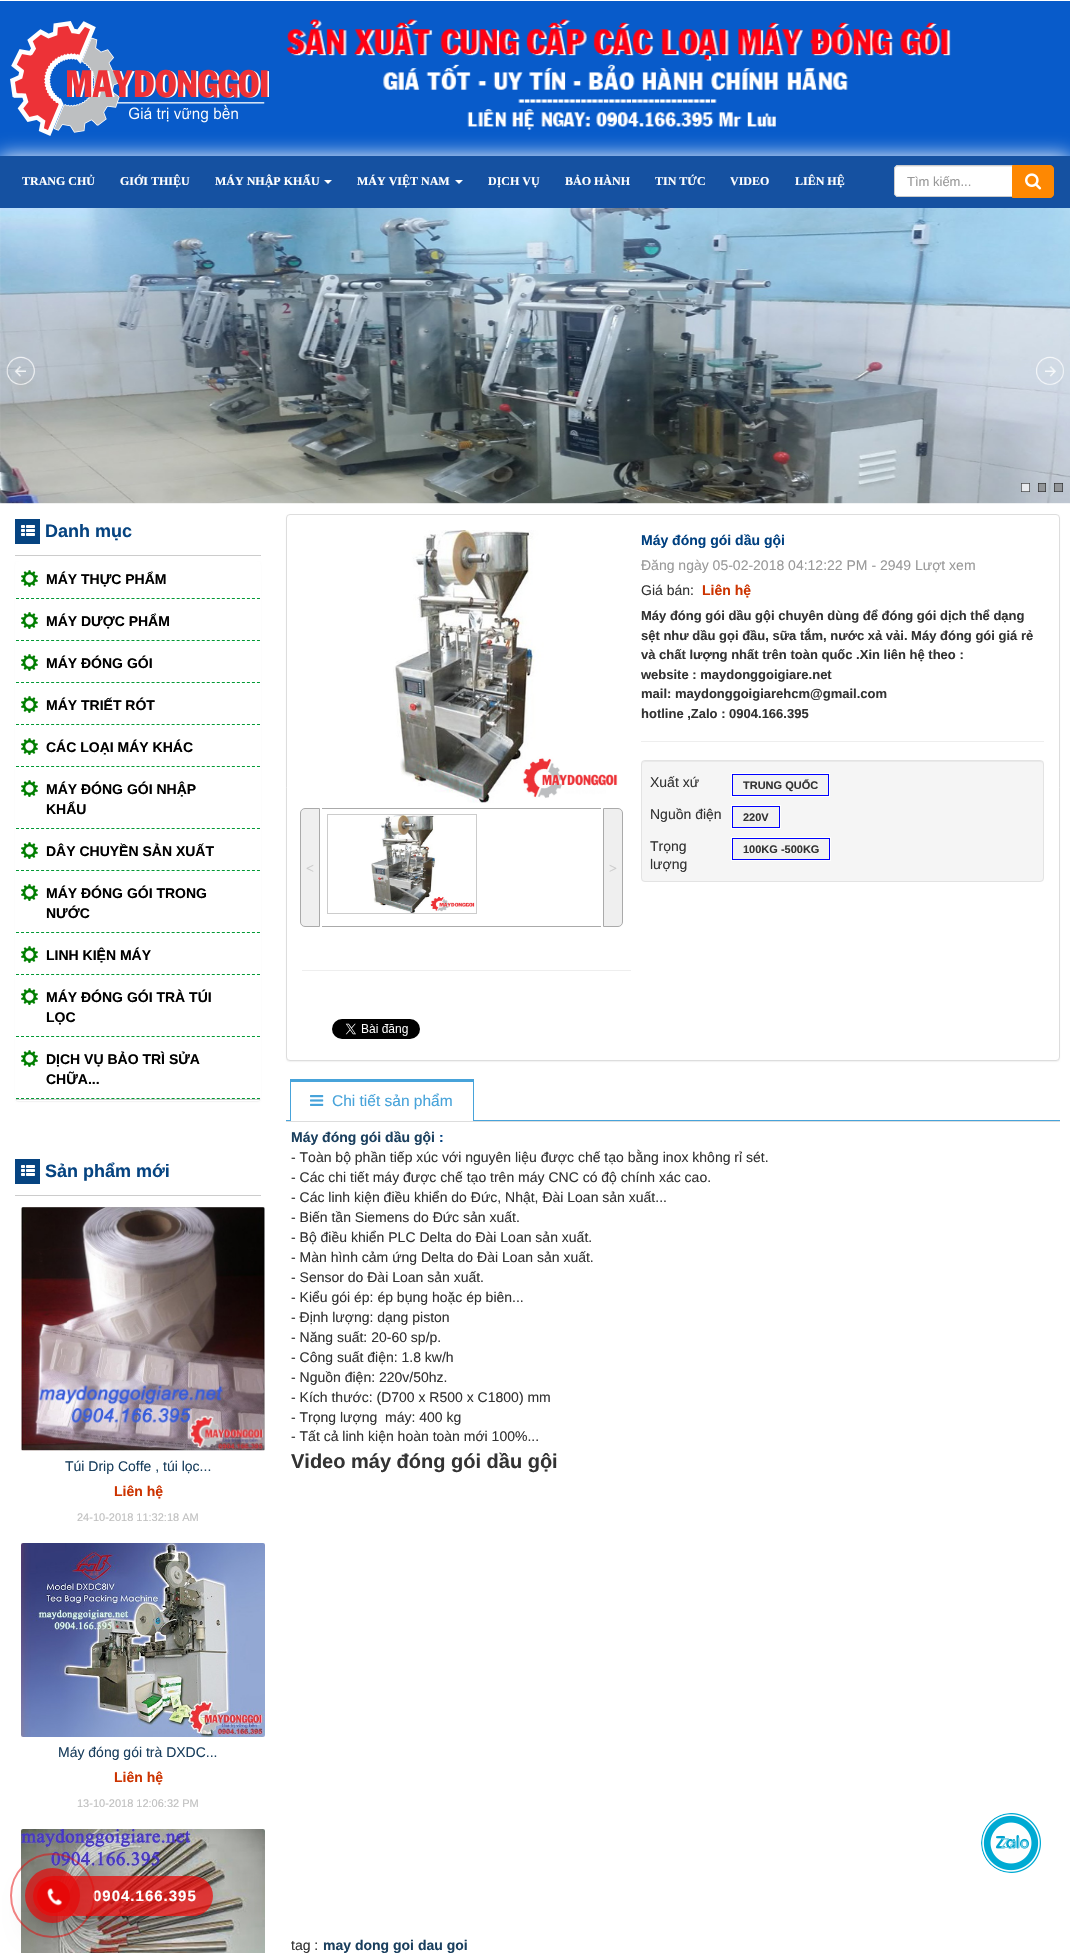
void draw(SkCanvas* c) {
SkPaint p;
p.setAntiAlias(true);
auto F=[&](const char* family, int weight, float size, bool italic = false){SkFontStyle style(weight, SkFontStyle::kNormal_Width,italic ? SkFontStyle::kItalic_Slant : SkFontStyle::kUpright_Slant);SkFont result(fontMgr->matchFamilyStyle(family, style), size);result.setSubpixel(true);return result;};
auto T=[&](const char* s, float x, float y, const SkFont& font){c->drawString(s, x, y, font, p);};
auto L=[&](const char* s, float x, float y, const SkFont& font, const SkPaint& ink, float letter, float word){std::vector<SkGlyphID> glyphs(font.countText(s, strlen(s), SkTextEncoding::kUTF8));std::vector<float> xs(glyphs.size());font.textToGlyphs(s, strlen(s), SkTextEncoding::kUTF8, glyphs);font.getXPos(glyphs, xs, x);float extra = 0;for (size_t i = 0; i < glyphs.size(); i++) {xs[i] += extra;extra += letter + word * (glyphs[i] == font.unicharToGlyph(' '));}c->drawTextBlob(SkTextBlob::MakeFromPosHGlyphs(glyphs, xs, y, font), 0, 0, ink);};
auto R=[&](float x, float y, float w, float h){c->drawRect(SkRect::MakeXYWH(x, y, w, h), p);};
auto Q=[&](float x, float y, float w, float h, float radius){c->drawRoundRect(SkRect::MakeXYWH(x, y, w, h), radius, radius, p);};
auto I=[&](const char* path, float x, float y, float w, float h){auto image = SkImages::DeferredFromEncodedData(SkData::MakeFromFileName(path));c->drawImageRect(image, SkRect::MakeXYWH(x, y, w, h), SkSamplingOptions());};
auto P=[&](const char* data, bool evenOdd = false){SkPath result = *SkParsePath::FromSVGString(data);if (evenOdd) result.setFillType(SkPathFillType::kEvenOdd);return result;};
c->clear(0xffffffff);
p.setColor(0xff085bca);
R(0,1,1070,155);
I("1.png",10,21,259,115);
I("2.png",286,19,665,111);
p.setColor(0xffffffff);
p.setMaskFilter(SkMaskFilter::MakeBlur(kNormal_SkBlurStyle, 10));
c->drawRect(SkRect::MakeXYWH(0,156,1070,52),p);
p.setMaskFilter(nullptr);
p.setColor(0xff1551a1);
R(0,156,1070,52);
auto f1 = F("Liberation Serif",700,12);
p.setColor(0xffffffff);
T("TRANG CHỦ",22,185,f1);
T("GIỚI THIỆU",120,185,f1);
T("MÁY NHẬP KHẨU",215,185,f1);
c->drawPath(P("M324 180h8l-4 4z"),p);
T("MÁY VIỆT NAM",357,185,f1);
c->drawPath(P("M455 180h8l-4 4z"),p);
T("DỊCH VỤ",488,185,f1);
T("BẢO HÀNH",565,185,f1);
T("TIN TỨC",655,185,f1);
T("VIDEO",730,185,f1);
T("LIÊN HỆ",795,185,f1);
c->drawPath(P("M898 165h115v32h-115c-2 0-4-2-4-4v-24c0-2 2-4 4-4z"),p);
p.setColor(0xffececec);
c->drawPath(P("M898 167h114v-1h-114c-2 0-3 1-3 3v1c0-2 1-3 3-3z"),p);
p.setStroke(true);
p.setStrokeWidth(1);
p.setColor(0xffcccccc);
c->drawPath(P("M898 165.5h114.5v31h-114.5c-2 0-3.5-1.5-3.5-3.5v-24c0-2 1.5-3.5 3.5-3.5z"),p);
auto f2 = F("Liberation Sans",400,13);
p.setStroke(false);
p.setColor(0xff999999);
T("Tìm kiếm...",907,186,f2);
p.setColor(0xfffe8802);
c->drawPath(P("M1012.5 165.5h37.5c2 0 3.5 1.5 3.5 3.5v25c0 2-1.5 3.5-3.5 3.5h-37.5z"),p);
p.setStroke(true);
c->drawPath(P("M1012.5 165.5h37.5c2 0 3.5 1.5 3.5 3.5v25c0 2-1.5 3.5-3.5 3.5h-37.5z"),p);
I("3.png",1025,173,17,17);
I("4.png",0,208,1070,296);
I("5.png",6,356,29,29);
I("6.png",1036,356,28,29);
p.setStroke(false);
p.setColor(0xb3ffffff);
c->drawRect(SkRect::MakeXYWH(1021.35,483.35,8.3,8.3),p);
p.setStroke(true);
p.setStrokeWidth(.7);
p.setColor(0xff464747);
c->drawRect(SkRect::MakeXYWH(1021.35,483.35,8.3,8.3),p);
p.setStroke(false);
p.setColor(0xb3808080);
c->drawRect(SkRect::MakeXYWH(1038.35,483.35,7.3,8.3),p);
p.setStroke(true);
p.setColor(0xff2c2c2d);
c->drawRect(SkRect::MakeXYWH(1038.35,483.35,7.3,8.3),p);
p.setStroke(false);
p.setColor(0xb3808080);
c->drawRect(SkRect::MakeXYWH(1054.35,483.35,8.3,8.3),p);
p.setStroke(true);
p.setColor(0xff2c2d2e);
c->drawRect(SkRect::MakeXYWH(1054.35,483.35,8.3,8.3),p);
p.setStroke(false);
p.setColor(0xffcccccc);
R(15,555,246,1);
p.setColor(0xff064481);
R(15,519,25,25);
I("7.png",21,525,14,11);
auto f3 = F("Liberation Sans",700,18);
T("Danh mục",45,537,f3);
p.setColor(0x0d000000);
p.setMaskFilter(SkMaskFilter::MakeBlur(kNormal_SkBlurStyle, .5));
c->drawRoundRect(SkRect::MakeXYWH(15,562,246,540),4,4,p);
p.setMaskFilter(nullptr);
p.setColor(0xffffffff);
Q(15,561,246,540,4);
p.setColor(0xffcccccc);
R(16,1099,244,1);
I("8.png",21,570,17,17);
p.setStroke(true);
p.setStrokeWidth(1);
p.setColor(0xff019934);
p.setPathEffect(SkDashPathEffect::Make({{3,2.02f}}, 0));
c->drawPath(P("M16 598.5h244"),p);
p.setPathEffect(nullptr);
auto f4 = F("Liberation Sans",700,14);
p.setStroke(false);
p.setColor(0xff000000);
T("MÁY THỰC PHẨM",46,584,f4);
I("8.png",21,612,17,17);
p.setStroke(true);
p.setColor(0xff019934);
p.setPathEffect(SkDashPathEffect::Make({{3,2.02f}}, 0));
c->drawPath(P("M16 640.5h244"),p);
p.setPathEffect(nullptr);
p.setStroke(false);
p.setColor(0xff000000);
T("MÁY DƯỢC PHẨM",46,626,f4);
I("8.png",21,654,17,17);
p.setStroke(true);
p.setColor(0xff019934);
p.setPathEffect(SkDashPathEffect::Make({{3,2.02f}}, 0));
c->drawPath(P("M16 682.5h244"),p);
p.setPathEffect(nullptr);
p.setStroke(false);
p.setColor(0xff000000);
T("MÁY ĐÓNG GÓI",46,668,f4);
I("8.png",21,696,17,17);
p.setStroke(true);
p.setColor(0xff019934);
p.setPathEffect(SkDashPathEffect::Make({{3,2.02f}}, 0));
c->drawPath(P("M16 724.5h244"),p);
p.setPathEffect(nullptr);
p.setStroke(false);
p.setColor(0xff000000);
T("MÁY TRIẾT RÓT",46,710,f4);
I("8.png",21,738,17,17);
p.setStroke(true);
p.setColor(0xff019934);
p.setPathEffect(SkDashPathEffect::Make({{3,2.02f}}, 0));
c->drawPath(P("M16 766.5h244"),p);
p.setPathEffect(nullptr);
p.setStroke(false);
p.setColor(0xff000000);
T("CÁC LOẠI MÁY KHÁC",46,752,f4);
I("8.png",21,780,17,17);
p.setStroke(true);
p.setColor(0xff019934);
p.setPathEffect(SkDashPathEffect::Make({{3,2.02f}}, 0));
c->drawPath(P("M16 828.5h244"),p);
p.setPathEffect(nullptr);
p.setStroke(false);
p.setColor(0xff000000);
T("MÁY ĐÓNG GÓI NHẬP",46,794,f4);
T("KHẨU",46,814,f4);
I("8.png",21,842,17,17);
p.setStroke(true);
p.setColor(0xff019934);
p.setPathEffect(SkDashPathEffect::Make({{3,2.02f}}, 0));
c->drawPath(P("M16 870.5h244"),p);
p.setPathEffect(nullptr);
p.setStroke(false);
p.setColor(0xff000000);
T("DÂY CHUYỀN SẢN XUẤT",46,856,f4);
I("8.png",21,884,17,17);
p.setStroke(true);
p.setColor(0xff019934);
p.setPathEffect(SkDashPathEffect::Make({{3,2.02f}}, 0));
c->drawPath(P("M16 932.5h244"),p);
p.setPathEffect(nullptr);
p.setStroke(false);
p.setColor(0xff000000);
T("MÁY ĐÓNG GÓI TRONG",46,898,f4);
T("NƯỚC",46,918,f4);
I("8.png",21,946,17,17);
p.setStroke(true);
p.setColor(0xff019934);
p.setPathEffect(SkDashPathEffect::Make({{3,2.02f}}, 0));
c->drawPath(P("M16 974.5h244"),p);
p.setPathEffect(nullptr);
p.setStroke(false);
p.setColor(0xff000000);
T("LINH KIỆN MÁY",46,960,f4);
I("8.png",21,988,17,17);
p.setStroke(true);
p.setColor(0xff019934);
p.setPathEffect(SkDashPathEffect::Make({{3,2.02f}}, 0));
c->drawPath(P("M16 1036.5h244"),p);
p.setPathEffect(nullptr);
p.setStroke(false);
p.setColor(0xff000000);
T("MÁY ĐÓNG GÓI TRÀ TÚI",46,1002,f4);
T("LỌC",46,1022,f4);
I("8.png",21,1050,17,17);
p.setStroke(true);
p.setColor(0xff019934);
p.setPathEffect(SkDashPathEffect::Make({{3,2.02f}}, 0));
c->drawPath(P("M16 1098.5h244"),p);
p.setPathEffect(nullptr);
p.setStroke(false);
p.setColor(0xff000000);
T("DỊCH VỤ BẢO TRÌ SỬA",46,1064,f4);
T("CHỮA...",46,1084,f4);
p.setColor(0xffcccccc);
R(15,1195,246,1);
p.setColor(0xff064481);
R(15,1159,25,25);
I("7.png",21,1165,14,11);
T("Sản phẩm mới",45,1177,f3);
I("9.png",21,1207,244,244);
auto f5 = F("Liberation Sans",400,14);
p.setColor(0xff1a3f5e);
T("Túi Drip Coffe , túi lọc...",65,1471,f5);
p.setColor(0xffcc3300);
T("Liên hệ",114,1496,f4);
auto f6 = F("Liberation Sans",400,11);
p.setColor(0xffc0c0c0);
T("24-10-2018 11:32:18 AM",77,1521,f6);
I("10.png",21,1543,244,194);
p.setColor(0xff1a3f5e);
T("Máy đóng gói trà DXDC...",58,1757,f5);
p.setColor(0xffcc3300);
T("Liên hệ",114,1782,f4);
p.setColor(0xffc0c0c0);
T("13-10-2018 12:06:32 PM",77,1807,f6);
I("11.png",21,1829,244,124);
p.setColor(0x0d000000);
p.setMaskFilter(SkMaskFilter::MakeBlur(kNormal_SkBlurStyle, .5));
c->drawRoundRect(SkRect::MakeXYWH(286,515,774,547),4,4,p);
p.setMaskFilter(nullptr);
p.setColor(0xffffffff);
c->drawRoundRect(SkRect::MakeXYWH(286.5,514.5,773,546),3.5,3.5,p);
p.setStroke(true);
p.setColor(0xffdddddd);
c->drawRoundRect(SkRect::MakeXYWH(286.5,514.5,773,546),3.5,3.5,p);
I("12.png",393,530,225,273);
p.setStroke(false);
p.setColor(0xffaaaaaa);
R(322,808,279,1);
R(322,926,279,1);
p.setColor(0xffefefef);
c->drawPath(P("M305 808.5h14.5v118h-14.5c-2.5 0-4.5-2-4.5-4.5v-109c0-2.5 2-4.5 4.5-4.5z"),p);
p.setStroke(true);
p.setColor(0xffaaaaaa);
c->drawPath(P("M305 808.5h14.5v118h-14.5c-2.5 0-4.5-2-4.5-4.5v-109c0-2.5 2-4.5 4.5-4.5z"),p);
auto f7 = F("Liberation Serif",700,14);
p.setStroke(false);
p.setColor(0xffcccccc);
T("˂",306,873,f7);
p.setStroke(true);
c->drawRect(SkRect::MakeXYWH(327.5,814.5,149,99),p);
I("13.png",371,815,104,98);
p.setStroke(false);
p.setColor(0xffefefef);
c->drawPath(P("M603.5 808.5h14.5c2.5 0 4.5 2 4.5 4.5v109c0 2.5-2 4.5-4.5 4.5h-14.5z"),p);
p.setStroke(true);
p.setColor(0xffaaaaaa);
c->drawPath(P("M603.5 808.5h14.5c2.5 0 4.5 2 4.5 4.5v109c0 2.5-2 4.5-4.5 4.5h-14.5z"),p);
p.setStroke(false);
p.setColor(0xffcccccc);
T("˃",609,873,f7);
p.setColor(0xffeeeeee);
R(302,970,329,1);
I("14.png",332,1019,88,20);
p.setColor(0xff004080);
T("Máy đóng gói dầu gội",641,545,f4);
p.setColor(0xff999999);
T("Đăng ngày 05-02-2018 04:12:22 PM - 2949 Lượt xem",641,570,f5);
p.setColor(0xff333333);
T("Giá bán:",641,595,f5);
p.setColor(0xffcc3300);
T("Liên hệ",702,595,f4);
auto f8 = F("Liberation Sans",700,13);
p.setColor(0xff333333);
T("Máy đóng gói dầu gội chuyên dùng để đóng gói dịch thể dạng",641,620,f8);
T("sệt như dầu gọi đầu, sữa tắm, nước xả vải. Máy đóng gói giá rẻ",641,640,f8);
T("và chất lượng nhất trên toàn quốc .Xin liên hệ theo :",641,659,f8);
T("website : maydonggoigiare.net",641,679,f8);
T("mail: maydonggoigiarehcm@gmail.com",641,698,f8);
T("hotline ,Zalo : 0904.166.395",641,718,f8);
p.setColor(0xffeeeeee);
R(641,741,403,1);
p.setColor(0xfff5f5f5);
Q(641,760,403,122,4);
p.setColor(0xffe9e9e9);
c->drawPath(P("M645 762h395c2 0 3 1 3 3c0-2-1-4-3-4h-395l-2 1l-1 3c0-2 1-3 3-3z"),p);
p.setStroke(true);
p.setColor(0xffe3e3e3);
c->drawRoundRect(SkRect::MakeXYWH(641.5,760.5,402,121),3.5,3.5,p);
p.setStroke(false);
p.setColor(0xff333333);
T("Xuất xứ",650,787,f5);
p.setColor(0xfff2f2f2);
c->drawRect(SkRect::MakeXYWH(732.5,774.5,96,21),p);
p.setStroke(true);
p.setColor(0xff0000ff);
c->drawRect(SkRect::MakeXYWH(732.5,774.5,96,21),p);
p.setColor(0xffffffff);
c->drawRect(SkRect::MakeXYWH(731.5,773.5,98,23),p);
auto f9 = F("Liberation Sans",700,11);
p.setStroke(false);
p.setColor(0xff333333);
T("TRUNG QUỐC",743,789,f9);
T("Nguồn điện",650,819,f5);
p.setColor(0xfff2f2f2);
c->drawRect(SkRect::MakeXYWH(732.5,806.5,47,21),p);
p.setStroke(true);
p.setColor(0xff0000ff);
c->drawRect(SkRect::MakeXYWH(732.5,806.5,47,21),p);
p.setColor(0xffffffff);
c->drawRect(SkRect::MakeXYWH(731.5,805.5,49,23),p);
p.setStroke(false);
p.setColor(0xff333333);
T("220V",743,821,f9);
T("Trọng",650,851,f5);
T("lượng",650,869,f5);
p.setColor(0xfff2f2f2);
c->drawRect(SkRect::MakeXYWH(732.5,838.5,97,21),p);
p.setStroke(true);
p.setColor(0xff0000ff);
c->drawRect(SkRect::MakeXYWH(732.5,838.5,97,21),p);
p.setColor(0xffffffff);
c->drawRect(SkRect::MakeXYWH(731.5,837.5,99,23),p);
p.setStroke(false);
p.setColor(0xff333333);
T("100KG -500KG",743,853,f9);
p.setColor(0xffdddddd);
R(286,1121,774,1);
p.setColor(0xff47a3da);
R(291,1080,182,2);
R(290,1079,184,1);
R(473,1079,1,42);
R(290,1079,1,42);
I("15.png",310,1095,14,11);
auto f10 = F("Liberation Sans",400,15.5);
T("Chi tiết sản phẩm",332,1106,f10);
R(286,1120,5,1);
R(473,1120,587,1);
p.setColor(0xff1a3f5e);
T("Máy đóng gói dầu gội",291,1142,f4);
p.setColor(0xff004080);
T(":",439,1142,f4);
p.setColor(0xff333333);
T("- Toàn bộ phần tiếp xúc với nguyên liệu được chế tạo bằng inox không rỉ sét.",291,1162,f5);
T("- Các chi tiết máy được chế tạo trên máy CNC có độ chính xác cao.",291,1182,f5);
T("- Các linh kiện điều khiển do Đức, Nhật, Đài Loan sản xuất...",291,1202,f5);
T("- Biến tần Siemens do Đức sản xuất.",291,1222,f5);
T("- Bộ điều khiển PLC Delta do Đài Loan sản xuất.",291,1242,f5);
T("- Màn hình cảm ứng Delta do Đài Loan sản xuất.",291,1262,f5);
T("- Sensor do Đài Loan sản xuất.",291,1282,f5);
T("- Kiểu gói ép: ép bụng hoặc ép biên...",291,1302,f5);
T("- Định lượng: dạng piston",291,1322,f5);
T("- Năng suất: 20-60 sp/p.",291,1342,f5);
T("- Công suất điện: 1.8 kw/h",291,1362,f5);
T("- Nguồn điện: 220v/50hz.",291,1382,f5);
T("- Kích thước: (D700 x R500 x C1800) mm",291,1402,f5);
T("- Trọng lượng  máy: 400 kg",291,1422,f5);
T("- Tất cả linh kiện hoàn toàn mới 100%...",291,1441,f5);
auto f11 = F("Liberation Sans",700,20);
T("Video máy đóng gói dầu gội",291,1468,f11);
T("tag :",291,1950,f5);
p.setColor(0xff1a3f5e);
T("may dong goi dau goi",323,1950,f4);
I("16.png",981,1813,60,60);
p.setColor(0xff76cee5);
T("Zalo",1001,1848,f5);
c->save();
c->clipPath(P("M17 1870h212v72h-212zm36 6h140c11 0 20 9 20 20c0 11-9 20-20 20h-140c-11 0-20-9-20-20c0-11 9-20 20-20z",true),true);
p.setColor(0x1a000000);
p.setMaskFilter(SkMaskFilter::MakeBlur(kNormal_SkBlurStyle, 5));
c->drawRoundRect(SkRect::MakeXYWH(33,1886,180,40),20,20,p);
p.setMaskFilter(nullptr);
c->restore();
c->save();
c->clipPath(P("M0 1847h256v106h-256zm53 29h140c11 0 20 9 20 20c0 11-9 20-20 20h-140c-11 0-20-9-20-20c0-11 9-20 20-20z",true),true);
p.setColor(0x40000000);
p.setMaskFilter(SkMaskFilter::MakeBlur(kNormal_SkBlurStyle, 14));
c->drawRoundRect(SkRect::MakeXYWH(33,1890,180,40),20,20,p);
p.setMaskFilter(nullptr);
c->restore();
p.setColor(0xbfe60808);
Q(33,1876,180,40,20);
auto f12 = F("Liberation Sans",700,15);
p.setColor(0xffffffff);
L("0904.166.395",93,1901,f12,p,1,0);
p.setStroke(true);
p.setStrokeWidth(2);
p.setColor(0x80e60808);
c->drawCircle(52.5,1895.5,41.5,p);
p.setStroke(false);
p.setColor(0xb3e60808);
c->drawCircle(52.5,1895.5,27.5,p);
p.setColor(0xffe60808);
c->drawCircle(53.5,1896.5,16.5,p);
I("17.png",47,1888,16,18);
}
